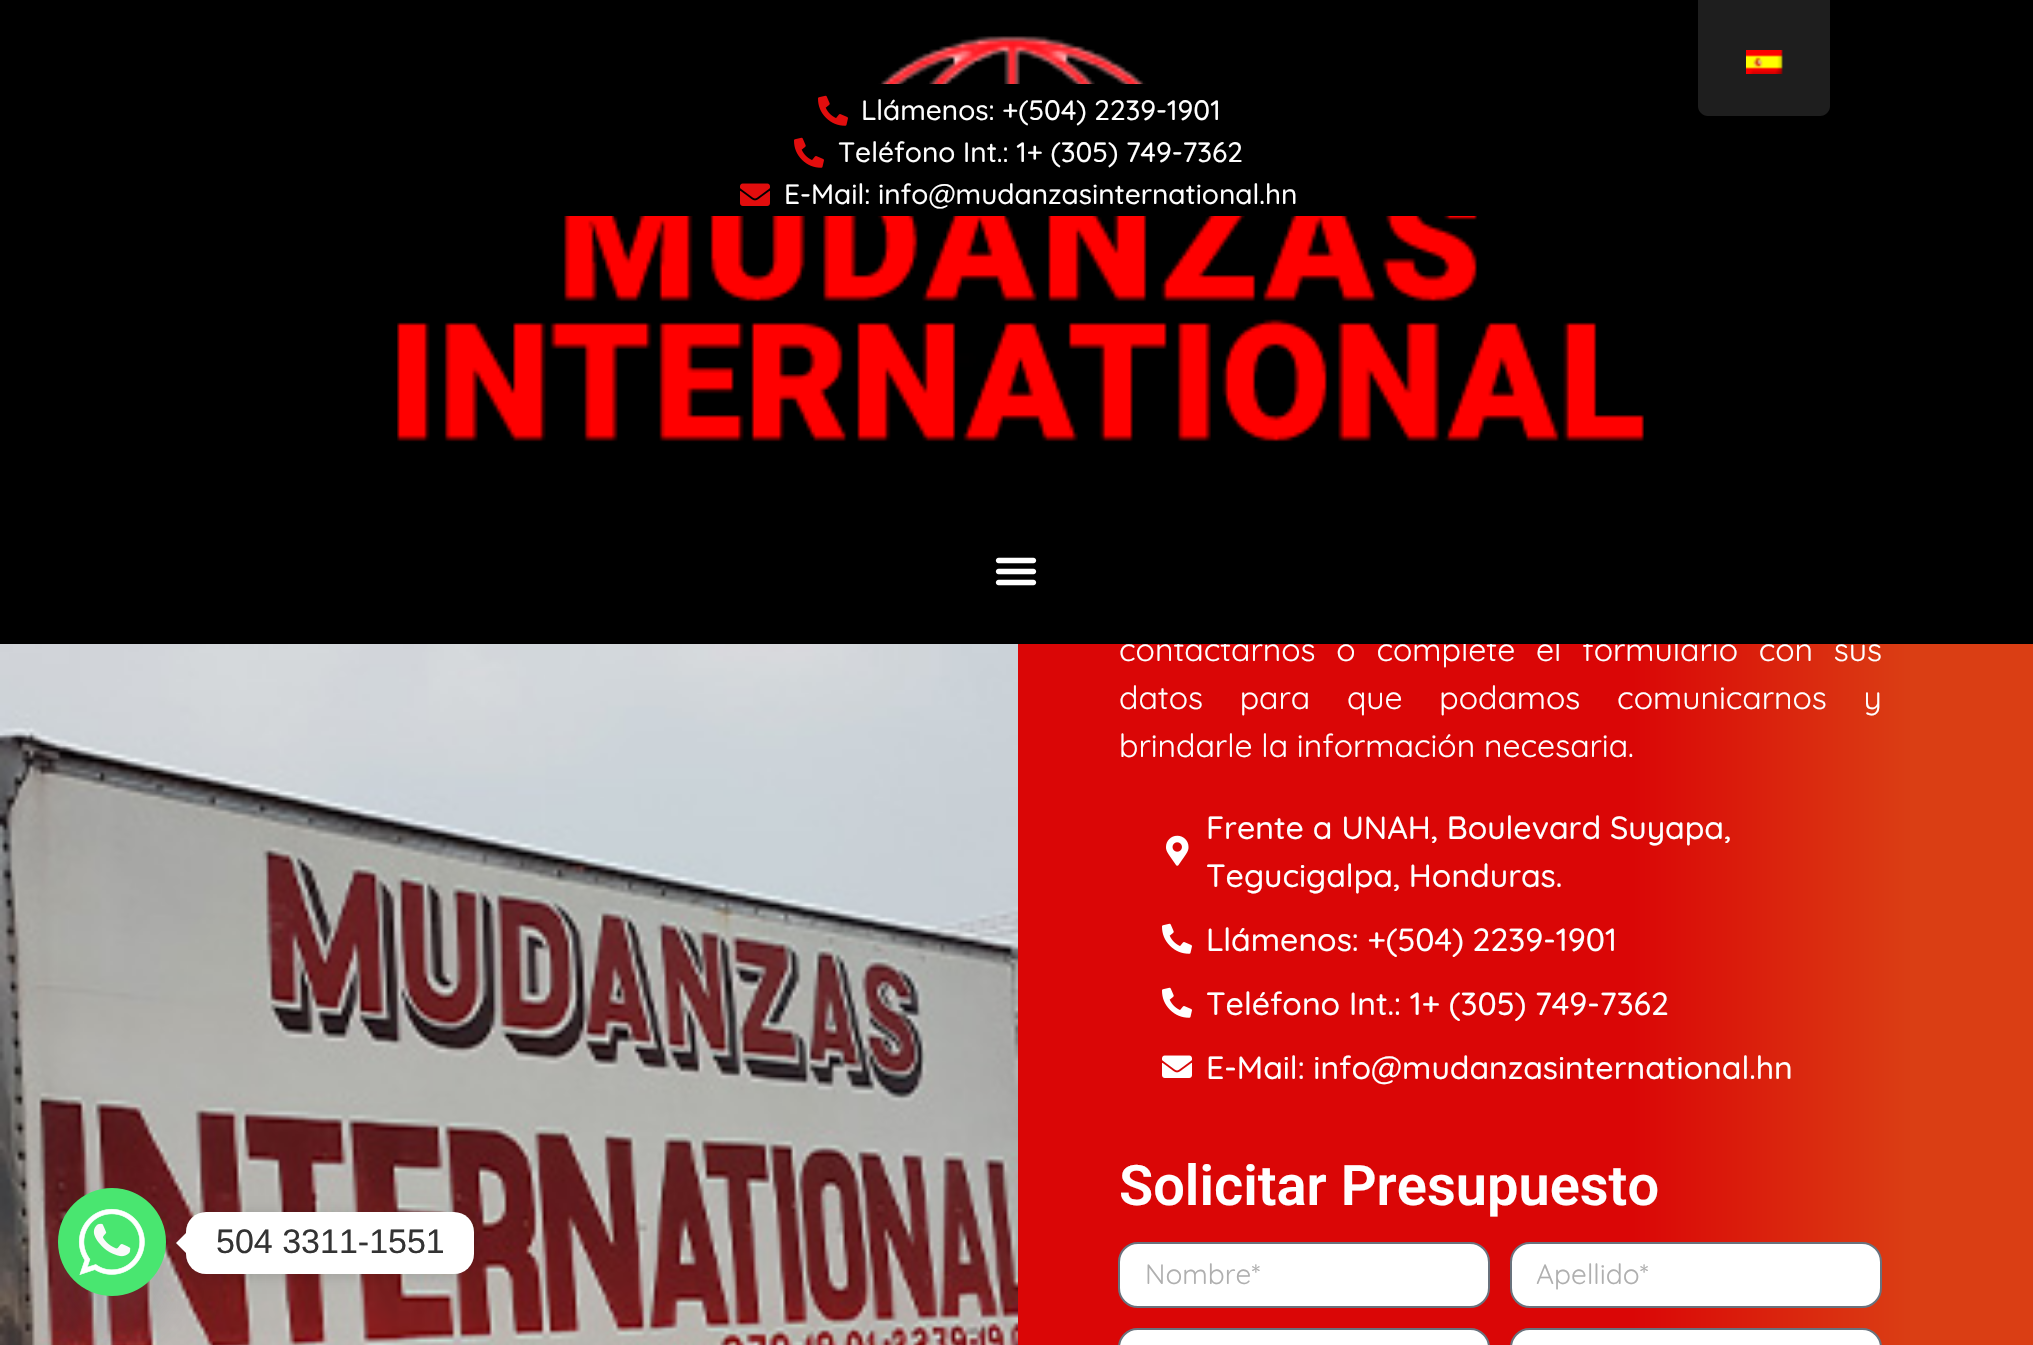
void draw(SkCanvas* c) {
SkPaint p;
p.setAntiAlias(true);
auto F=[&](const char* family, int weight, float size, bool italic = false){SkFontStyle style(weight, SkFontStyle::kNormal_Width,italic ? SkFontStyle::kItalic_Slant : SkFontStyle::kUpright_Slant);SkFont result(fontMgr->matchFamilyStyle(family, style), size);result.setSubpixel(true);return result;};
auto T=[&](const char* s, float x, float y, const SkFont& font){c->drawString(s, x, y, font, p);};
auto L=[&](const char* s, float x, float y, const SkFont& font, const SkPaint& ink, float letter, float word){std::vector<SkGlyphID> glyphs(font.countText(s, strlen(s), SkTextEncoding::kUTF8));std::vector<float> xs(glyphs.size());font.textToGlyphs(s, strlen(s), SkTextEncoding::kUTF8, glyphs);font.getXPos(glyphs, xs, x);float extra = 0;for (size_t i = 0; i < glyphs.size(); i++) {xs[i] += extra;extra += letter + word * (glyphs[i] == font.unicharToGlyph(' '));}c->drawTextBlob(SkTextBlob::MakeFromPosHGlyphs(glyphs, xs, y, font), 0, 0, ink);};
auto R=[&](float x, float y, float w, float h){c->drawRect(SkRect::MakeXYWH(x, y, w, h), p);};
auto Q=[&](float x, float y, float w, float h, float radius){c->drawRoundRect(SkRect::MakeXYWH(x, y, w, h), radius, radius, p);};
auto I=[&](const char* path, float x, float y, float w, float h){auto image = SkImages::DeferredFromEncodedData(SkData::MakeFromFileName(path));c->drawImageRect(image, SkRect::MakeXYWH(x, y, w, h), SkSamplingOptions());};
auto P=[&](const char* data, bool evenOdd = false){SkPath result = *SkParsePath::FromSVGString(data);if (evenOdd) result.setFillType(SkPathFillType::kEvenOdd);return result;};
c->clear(0xffffffff);
{
const SkColor colors[] = {0xffda0606,0xffda3e14};
const float stops[] = {.6,.88};
const SkPoint ends[] = {{1018,1186}, {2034,1186}};
p.setShader(SkGradientShader::MakeLinear(ends, colors, stops, 2, SkTileMode::kClamp));
p.setAlpha(255);
}
R(1018,644,1015,701);
auto f1 = F("Quicksand",400,32);
p.setShader(nullptr);
p.setColor(0xffffffff);
L("contactarnos o complete el formulario con sus",1119,661,f1,p,0,12);
p.setColor(0xff000000);
R(0,0,2033,644);
p.setColor(0xff1e1e1e);
c->drawPath(P("M1698 0h132v106c0 5.5-4.5 10-10 10h-112c-5.5 0-10-4.5-10-10z"),p);
I("1.png",1746,50,37,24);
I("2.png",397,36,1247,406);
I("3.png",995,557,42,29);
p.setColor(0xff000000);
R(564,84,913,132);
I("4.png",818,95,30,31);
auto f2 = F("Quicksand",500,28);
p.setColor(0xffffffff);
T("Llámenos: +(504) 2239-1901",861,120,f2);
I("4.png",794,137,30,31);
T("Teléfono Int.: 1+ (305) 749-7362",838,162,f2);
I("5.png",740,183,30,23);
T("E-Mail: info@mudanzasinternational.hn",784,204,f2);
I("7.png",0,644,1018,701);
p.setColor(0x2949687e);
p.setMaskFilter(SkMaskFilter::MakeBlur(kNormal_SkBlurStyle, 24));
c->drawRoundRect(SkRect::MakeXYWH(58,1220,108,108),54,54,p);
p.setMaskFilter(nullptr);
I("6.png",58,1188,108,108);
p.setColor(0x26000000);
p.setMaskFilter(SkMaskFilter::MakeBlur(kNormal_SkBlurStyle, 7.5));
c->drawRoundRect(SkRect::MakeXYWH(186,1214,288,62),20,20,p);
p.setMaskFilter(nullptr);
p.setColor(0xffffffff);
Q(186,1212,288,62,20);
c->drawPath(P("M186 1233v20l-10-10z"),p);
auto f3 = F("Liberation Sans",400,34);
p.setColor(0xff333333);
T("504 3311-1551",216,1253,f3);
p.setColor(0xffffffff);
L("datos para que podamos comunicarnos y",1119,709,f1,p,0,28);
T("brindarle la información necesaria.",1119,757,f1);
I("8.png",1166,835,23,31);
auto f4 = F("Quicksand",500,32);
T("Frente a UNAH, Boulevard Suyapa,",1206,839,f4);
T("Tegucigalpa, Honduras.",1206,887,f4);
I("9.png",1162,923,30,31);
T("Llámenos: +(504) 2239-1901",1206,951,f4);
I("9.png",1162,987,30,31);
T("Teléfono Int.: 1+ (305) 749-7362",1206,1015,f4);
I("10.png",1162,1055,30,23);
T("E-Mail: info@mudanzasinternational.hn",1206,1079,f4);
auto f5 = F("Roboto",600,56);
T("Solicitar Presupuesto",1119,1205,f5);
c->drawRoundRect(SkRect::MakeXYWH(1119,1243,370,64),19,19,p);
p.setStroke(true);
p.setStrokeWidth(2);
p.setColor(0xff69727d);
c->drawRoundRect(SkRect::MakeXYWH(1119,1243,370,64),19,19,p);
auto f6 = F("Quicksand",400,28);
p.setStroke(false);
p.setColor(0xffafafaf);
T("Nombre*",1145,1284,f6);
p.setColor(0xffffffff);
c->drawRoundRect(SkRect::MakeXYWH(1511,1243,370,64),19,19,p);
p.setStroke(true);
p.setColor(0xff69727d);
c->drawRoundRect(SkRect::MakeXYWH(1511,1243,370,64),19,19,p);
p.setStroke(false);
p.setColor(0xffafafaf);
T("Apellido*",1536,1284,f6);
p.setColor(0xffffffff);
c->drawRoundRect(SkRect::MakeXYWH(1119,1329,370,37),19,19,p);
p.setStroke(true);
p.setColor(0xff69727d);
c->drawRoundRect(SkRect::MakeXYWH(1119,1329,370,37),19,19,p);
p.setStroke(false);
p.setColor(0xffffffff);
c->drawRoundRect(SkRect::MakeXYWH(1511,1329,370,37),19,19,p);
p.setStroke(true);
p.setColor(0xff69727d);
c->drawRoundRect(SkRect::MakeXYWH(1511,1329,370,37),19,19,p);
}
